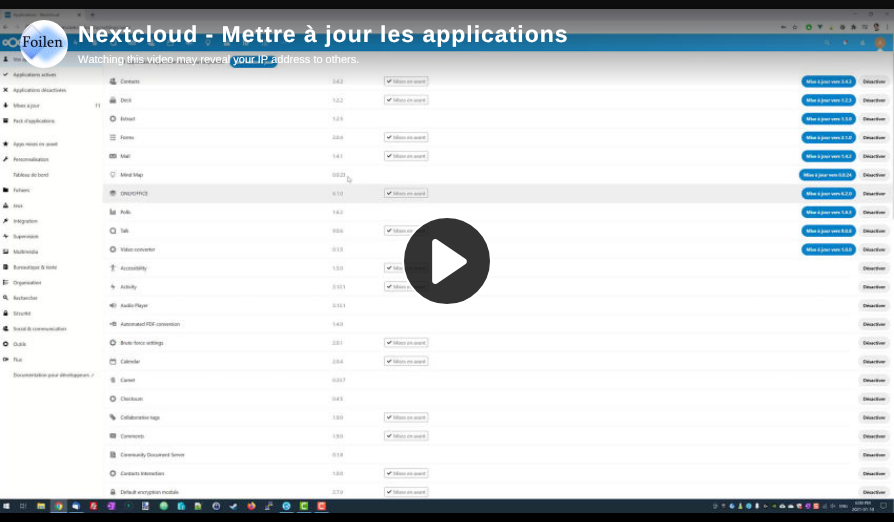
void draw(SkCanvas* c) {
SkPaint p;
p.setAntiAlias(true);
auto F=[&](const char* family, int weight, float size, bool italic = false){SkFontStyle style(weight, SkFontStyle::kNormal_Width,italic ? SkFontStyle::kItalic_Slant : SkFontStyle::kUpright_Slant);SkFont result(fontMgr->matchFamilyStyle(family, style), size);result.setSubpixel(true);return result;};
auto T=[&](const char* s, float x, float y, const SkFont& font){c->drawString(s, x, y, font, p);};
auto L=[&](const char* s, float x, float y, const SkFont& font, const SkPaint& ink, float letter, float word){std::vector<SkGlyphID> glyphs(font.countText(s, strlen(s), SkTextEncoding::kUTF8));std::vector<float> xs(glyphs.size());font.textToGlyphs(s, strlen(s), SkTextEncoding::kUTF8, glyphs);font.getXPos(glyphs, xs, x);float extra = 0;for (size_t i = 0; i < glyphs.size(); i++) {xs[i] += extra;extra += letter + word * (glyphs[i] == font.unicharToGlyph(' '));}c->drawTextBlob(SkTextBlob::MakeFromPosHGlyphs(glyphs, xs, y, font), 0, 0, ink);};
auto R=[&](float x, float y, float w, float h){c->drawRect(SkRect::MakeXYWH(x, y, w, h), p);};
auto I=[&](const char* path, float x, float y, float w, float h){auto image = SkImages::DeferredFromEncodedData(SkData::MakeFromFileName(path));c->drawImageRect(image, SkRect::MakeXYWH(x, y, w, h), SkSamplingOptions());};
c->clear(0xff000000);
I("1.png",0,9,894,504);
{
const SkColor colors[] = {0xb3141414,0x00141414};
const float stops[] = {0,1};
const SkPoint ends[] = {{447,0}, {447,88}};
p.setShader(SkGradientShader::MakeLinear(ends, colors, stops, 2, SkTileMode::kClamp));
p.setAlpha(255);
}
R(0,0,894,85);
I("2.png",20,20,48,48);
auto f1 = F("Liberation Sans",700,23);
p.setShader(nullptr);
p.setColor(0xffffffff);
L("Nextcloud - Mettre à jour les applications",78,42,f1,p,1,0);
auto f2 = F("Liberation Sans",400,11);
T("Watching this video may reveal your IP address to others.",78,63,f2);
p.setColor(0xcc000000);
c->drawCircle(447,261,44,p);
p.setStroke(true);
p.setStrokeWidth(2);
p.setColor(0xffffffff);
c->drawCircle(447,261,44,p);
I("3.png",432,239,35,45);
}
